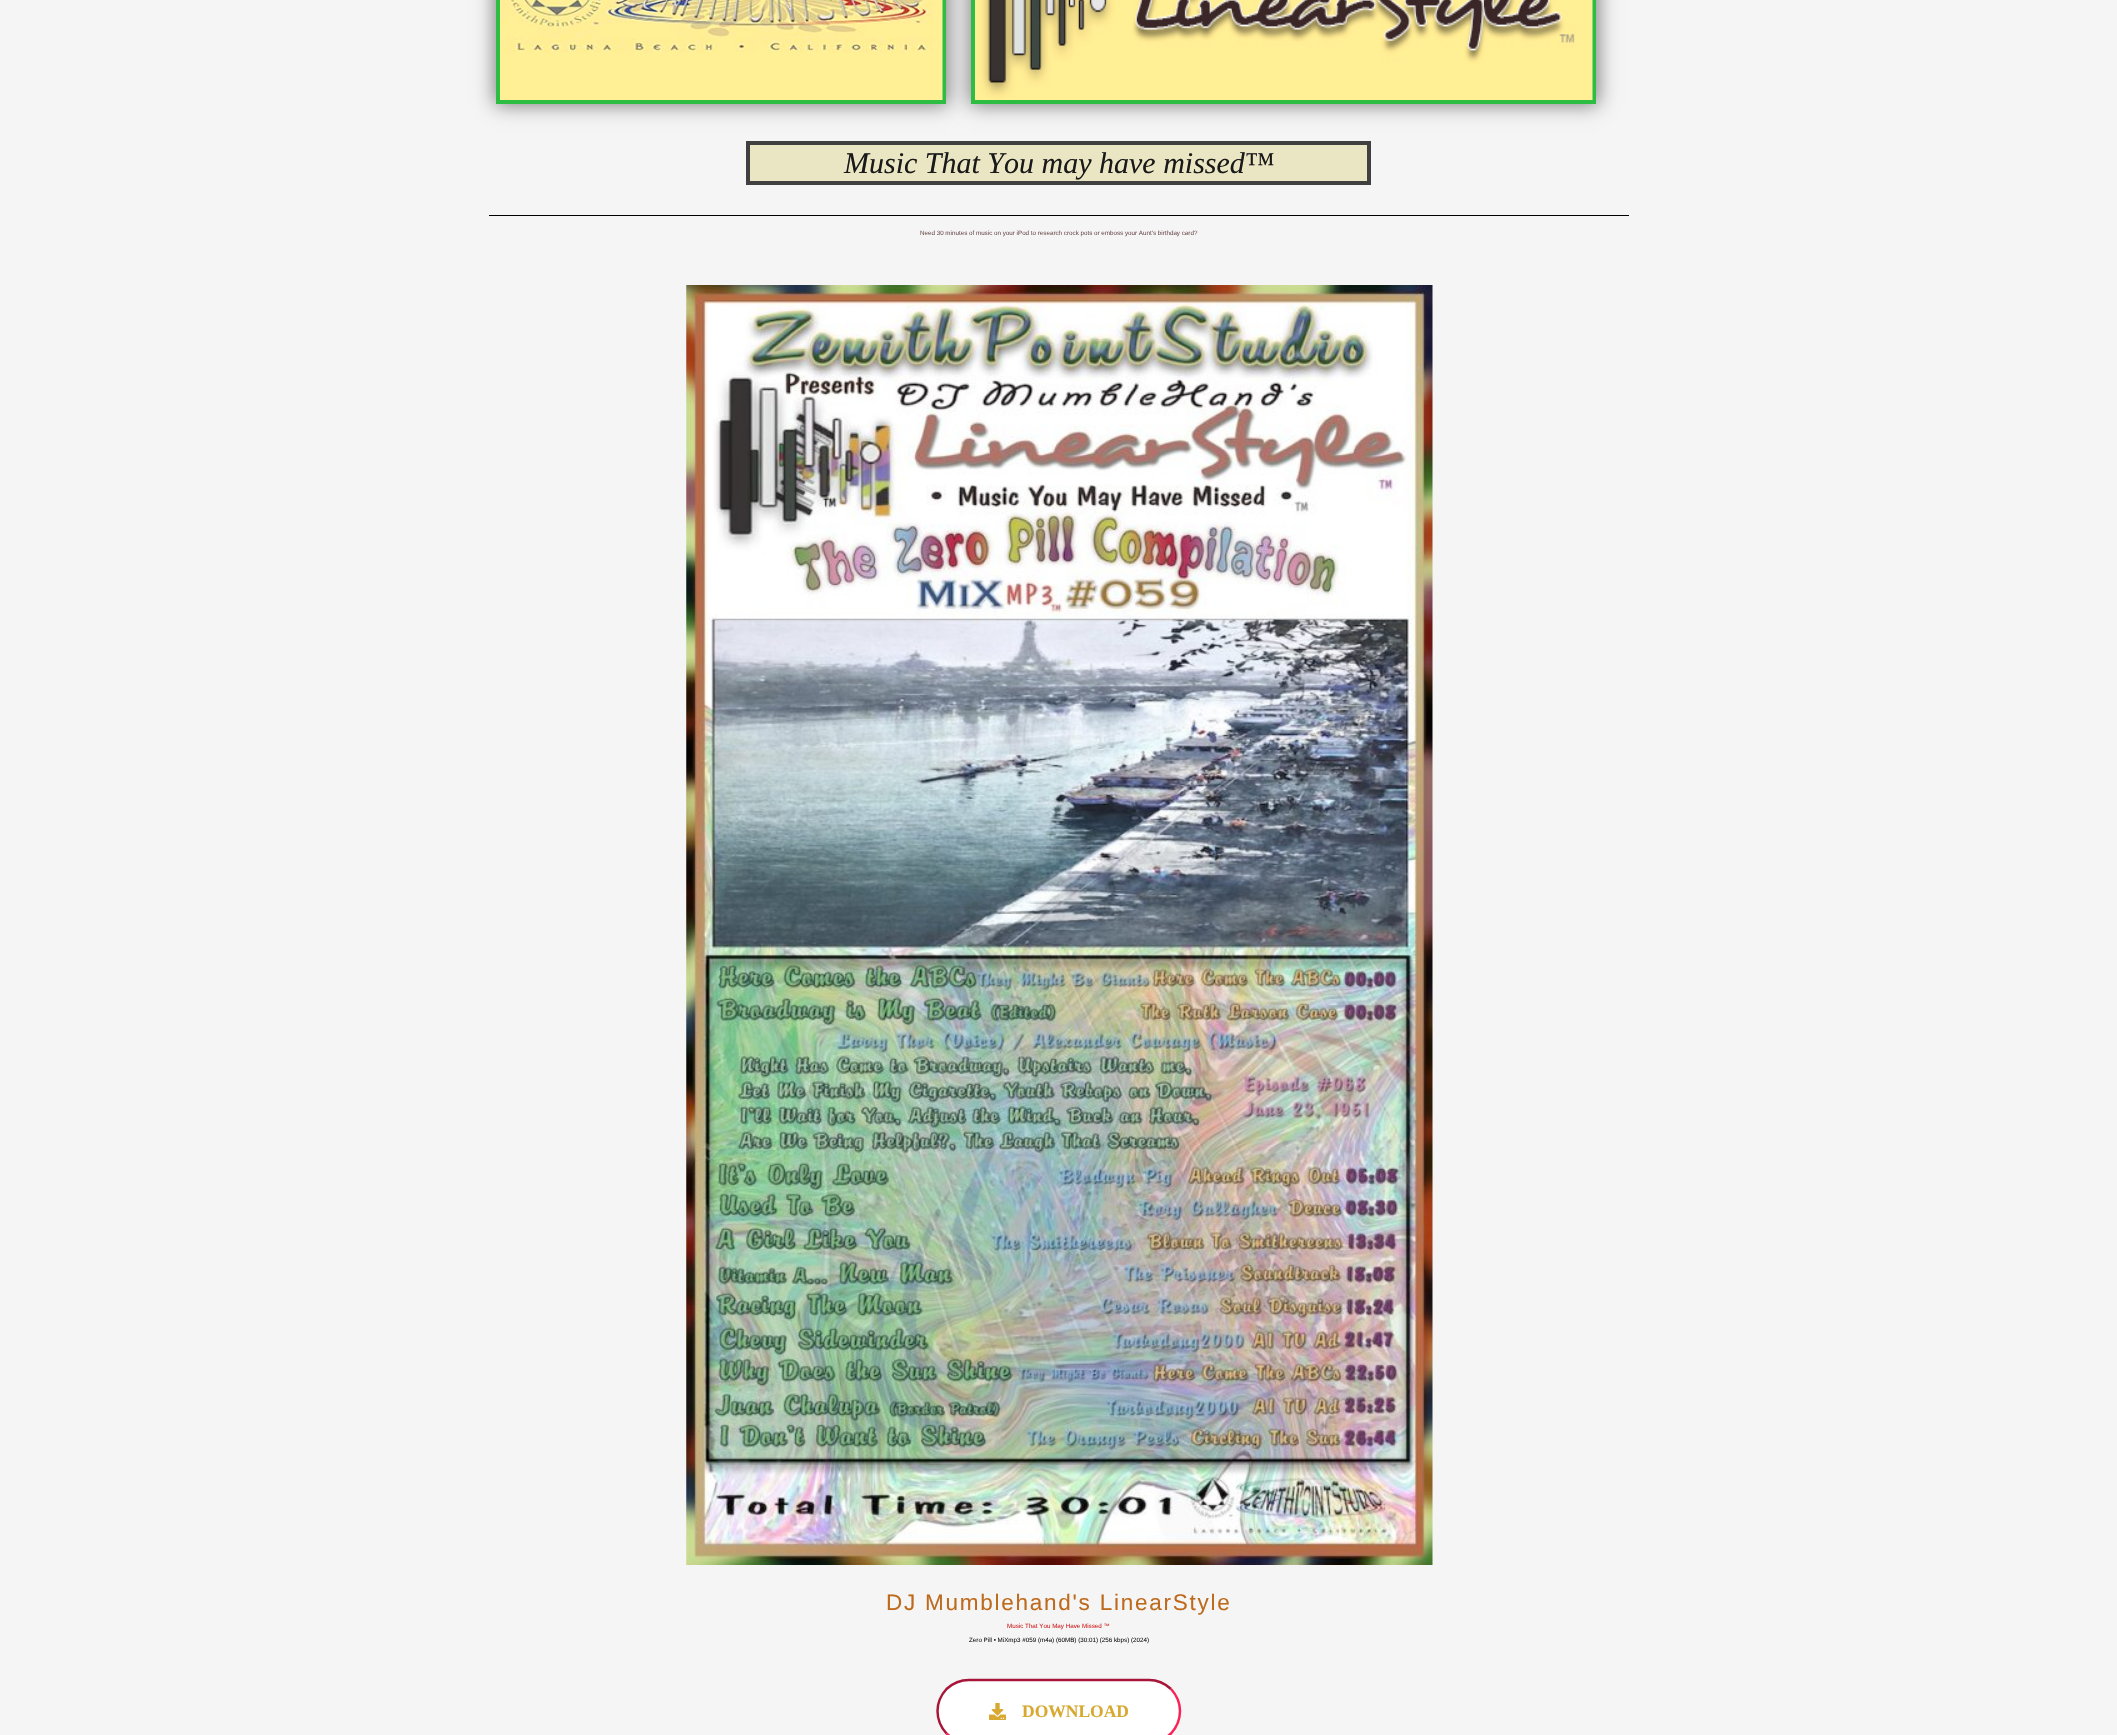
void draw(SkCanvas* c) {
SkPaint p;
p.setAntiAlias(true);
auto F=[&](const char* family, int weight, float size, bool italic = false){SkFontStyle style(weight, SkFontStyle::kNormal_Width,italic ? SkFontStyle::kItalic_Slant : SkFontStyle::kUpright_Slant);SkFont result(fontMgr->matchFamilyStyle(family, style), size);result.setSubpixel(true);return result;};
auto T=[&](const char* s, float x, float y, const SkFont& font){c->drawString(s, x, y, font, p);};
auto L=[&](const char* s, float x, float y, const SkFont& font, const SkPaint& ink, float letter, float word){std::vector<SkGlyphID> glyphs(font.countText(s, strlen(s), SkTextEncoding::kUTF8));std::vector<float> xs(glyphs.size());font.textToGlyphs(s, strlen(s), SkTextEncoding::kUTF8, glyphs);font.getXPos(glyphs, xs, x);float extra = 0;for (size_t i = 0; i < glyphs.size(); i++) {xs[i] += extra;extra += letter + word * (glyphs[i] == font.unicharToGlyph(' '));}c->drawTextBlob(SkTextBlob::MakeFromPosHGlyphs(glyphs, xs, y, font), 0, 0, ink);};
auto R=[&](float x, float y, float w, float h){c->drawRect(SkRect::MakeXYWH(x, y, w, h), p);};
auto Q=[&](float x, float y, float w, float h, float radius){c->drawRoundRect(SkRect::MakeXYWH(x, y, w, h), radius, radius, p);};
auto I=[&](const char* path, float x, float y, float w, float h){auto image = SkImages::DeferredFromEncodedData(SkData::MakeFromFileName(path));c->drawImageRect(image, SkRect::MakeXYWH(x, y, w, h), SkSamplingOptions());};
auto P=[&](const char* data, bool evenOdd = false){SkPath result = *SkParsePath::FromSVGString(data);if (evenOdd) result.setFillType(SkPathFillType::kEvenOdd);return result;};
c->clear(0xfff5f5f5);
p.setColor(0x80000000);
p.setMaskFilter(SkMaskFilter::MakeBlur(kNormal_SkBlurStyle, 9.5));
c->drawRect(SkRect::MakeXYWH(495,-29,453,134),p);
p.setMaskFilter(nullptr);
p.setStroke(true);
p.setStrokeWidth(4);
p.setColor(0xff2ebd43);
c->drawRect(SkRect::MakeXYWH(498,-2,446,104),p);
I("1.png",500,0,443,100);
p.setStroke(false);
p.setColor(0x80000000);
p.setMaskFilter(SkMaskFilter::MakeBlur(kNormal_SkBlurStyle, 9.5));
c->drawRect(SkRect::MakeXYWH(970,-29,628,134),p);
p.setMaskFilter(nullptr);
p.setStroke(true);
p.setColor(0xff2ebd43);
c->drawRect(SkRect::MakeXYWH(973,-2,621,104),p);
I("2.png",975,0,618,100);
p.setStroke(false);
p.setColor(0xffeae5c2);
c->drawRect(SkRect::MakeXYWH(748,143,621,40),p);
p.setStroke(true);
p.setColor(0xff404040);
c->drawRect(SkRect::MakeXYWH(748,143,621,40),p);
auto f1 = F("Liberation Serif",400,30,true);
p.setStroke(false);
p.setColor(0xff191919);
T("Music That You may have missed™",844,173,f1);
p.setColor(0xff000000);
R(489,215,1140,1);
auto f2 = F("Liberation Sans",400,6.25);
p.setColor(0xff725353);
T("Need 30 minutes of music on your iPod to research crock pots or emboss your Aunt's birthday card?",920,235,f2);
I("3.png",686,285,747,1280);
auto f3 = F("Liberation Sans",400,22.5);
p.setColor(0xffbe6a1c);
L("DJ Mumblehand's LinearStyle",886,1610,f3,p,1.75,0);
p.setColor(0xffce2020);
T("Music That You May Have Missed ™",1007,1628,f2);
p.setColor(0xff191919);
T("Zero Pill • MiXmp3 #059 (m4a) (60MB) (30:01) (256 kbps) (2024)",969,1642,f2);
p.setColor(0xffffffff);
Q(936,1679,245,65,32.5);
p.setStroke(true);
p.setStrokeWidth(2.5);
p.setColor(0xfffb2056);
c->drawPath(P("M1171 1689c5.5 6 9 14 9 22c0 8.5-3.5 16.5-9 22.5c-6 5.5-14 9-22 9h-180c-8.5 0-16.5-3.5-22.5-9"),p);
p.setColor(0xffa71539);
c->drawPath(P("M946.5 1733.5c-5.5-6-9-14-9-22.5c0-8 3.5-16 9-22c6-5.5 14-9 22.5-9h180c8 0 16 3.5 22 9"),p);
I("4.png",989,1703,17,17);
auto f4 = F("Liberation Serif",700,17.5);
p.setStroke(false);
p.setColor(0xffd8a930);
T("DOWNLOAD",1022,1717,f4);
}
